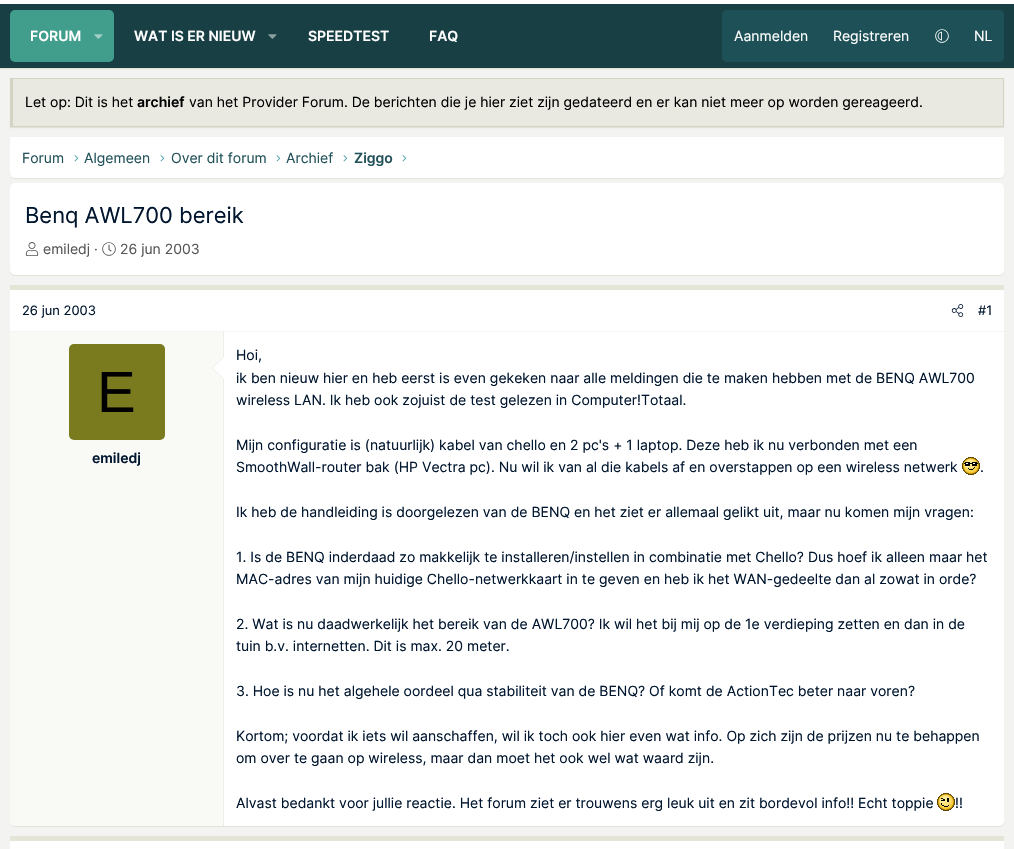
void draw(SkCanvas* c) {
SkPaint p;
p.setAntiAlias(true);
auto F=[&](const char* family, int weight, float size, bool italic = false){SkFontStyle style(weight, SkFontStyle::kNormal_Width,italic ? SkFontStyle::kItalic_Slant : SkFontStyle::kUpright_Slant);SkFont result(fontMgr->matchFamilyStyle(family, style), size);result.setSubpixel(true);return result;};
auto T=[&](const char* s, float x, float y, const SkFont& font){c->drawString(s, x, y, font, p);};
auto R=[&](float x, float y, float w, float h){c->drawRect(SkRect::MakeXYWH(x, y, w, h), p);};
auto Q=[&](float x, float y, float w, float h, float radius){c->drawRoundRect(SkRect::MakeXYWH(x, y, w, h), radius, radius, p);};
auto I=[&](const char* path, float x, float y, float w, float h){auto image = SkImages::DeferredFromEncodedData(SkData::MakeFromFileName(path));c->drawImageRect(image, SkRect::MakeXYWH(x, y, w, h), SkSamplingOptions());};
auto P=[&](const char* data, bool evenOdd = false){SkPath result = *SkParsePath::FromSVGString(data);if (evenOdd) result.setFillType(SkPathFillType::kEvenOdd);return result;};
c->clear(0xfff3f3f1);
p.setColor(0xffffffff);
R(0,0,1014,4);
p.setColor(0x339f9f6f);
p.setMaskFilter(SkMaskFilter::MakeBlur(kNormal_SkBlurStyle, .5));
c->drawRect(SkRect::MakeXYWH(0,5,1014,64),p);
p.setMaskFilter(nullptr);
p.setColor(0xff173f44);
R(0,4,1014,64);
p.setColor(0xff429e8c);
Q(10,10,104,52,5);
auto f1 = F("Inter",600,14);
p.setColor(0xffffffff);
T("FORUM",30,41,f1);
I("1.png",94,34,9,5);
T("WAT IS ER NIEUW",134,41,f1);
I("2.png",268,34,9,5);
T("SPEEDTEST",308,41,f1);
T("FAQ",429,41,f1);
p.setColor(0xff1e5157);
Q(722,10,282,52,5);
auto f2 = F("Inter",400,14);
p.setColor(0xffffffff);
T("Aanmelden",734,41,f2);
T("Registreren",833,41,f2);
I("3.png",935,29,14,14);
T("NL",974,41,f2);
p.setColor(0x339f9f6f);
p.setMaskFilter(SkMaskFilter::MakeBlur(kNormal_SkBlurStyle, .5));
c->drawRect(SkRect::MakeXYWH(10,79,994,49),p);
p.setMaskFilter(nullptr);
p.setColor(0xffe9e9e2);
R(13,79,990,47);
p.setColor(0xffd4d4c4);
R(10,78,994,1);
R(1003,78,1,49);
R(10,126,994,1);
R(10,78,3,49);
p.setColor(0xff000000);
T("Let op: Dit is het",25,107,f2);
T("archief",137,107,f1);
T("van het Provider Forum. De berichten die je hier ziet zijn gedateerd en er kan niet meer op worden gereageerd.",189,107,f2);
p.setColor(0x339f9f6f);
p.setMaskFilter(SkMaskFilter::MakeBlur(kNormal_SkBlurStyle, .5));
c->drawRoundRect(SkRect::MakeXYWH(10,138,994,41),5,5,p);
p.setMaskFilter(nullptr);
p.setColor(0xffffffff);
c->drawPath(P("M10 137h994v36c0 3-2 5-5 5h-984c-3 0-5-2-5-5z"),p);
p.setColor(0xff225259);
T("Forum",22,163,f2);
I("4.png",74,155,4,7);
T("Algemeen",84,163,f2);
I("5.png",160,155,5,7);
T("Over dit forum",171,163,f2);
I("5.png",276,155,5,7);
T("Archief",286,163,f2);
I("5.png",343,155,5,7);
T("Ziggo",354,163,f1);
I("5.png",402,155,5,7);
p.setColor(0x339f9f6f);
p.setMaskFilter(SkMaskFilter::MakeBlur(kNormal_SkBlurStyle, .5));
c->drawRoundRect(SkRect::MakeXYWH(10,184,994,92),5,5,p);
p.setMaskFilter(nullptr);
p.setColor(0xffffffff);
Q(10,183,994,92,5);
auto f3 = F("Inter",400,22);
p.setColor(0xff00152e);
T("Benq AWL700 bereik",25,223,f3);
I("6.png",25,242,14,14);
p.setColor(0xff575757);
T("emiledj ·",43,254,f2);
I("7.png",102,242,14,14);
T("26 jun 2003",120,254,f2);
p.setColor(0x339f9f6f);
p.setMaskFilter(SkMaskFilter::MakeBlur(kNormal_SkBlurStyle, .5));
c->drawRoundRect(SkRect::MakeXYWH(10,286,994,541),5,5,p);
p.setMaskFilter(nullptr);
p.setColor(0xffffffff);
Q(10,285,994,541,5);
p.setColor(0xffe4e4d7);
R(10,285,994,5);
p.setColor(0xfff5f5f5);
R(10,331,994,1);
auto f4 = F("Inter",400,13);
p.setColor(0xff00152e);
T("26 jun 2003",22,315,f4);
I("8.png",951,304,13,13);
T("#1",978,315,f4);
p.setColor(0xfff9f9f6);
c->drawPath(P("M10 332h214v494h-210c-2 0-4-2-4-4z"),p);
p.setColor(0xffededed);
R(223,332,1,494);
c->drawPath(P("M224 356v24l-12-12z"),p);
p.setColor(0xffffffff);
c->drawPath(P("M224 357v22l-11-11z"),p);
p.setColor(0xff7a7a1f);
Q(69,344,96,96,5);
auto f5 = F("Liberation Sans",400,58);
p.setColor(0xff000000);
T("E",97,412,f5);
p.setColor(0xff00152e);
T("emiledj",92,463,f1);
T("Hoi,",236,360,f2);
T("ik ben nieuw hier en heb eerst is even gekeken naar alle meldingen die te maken hebben met de BENQ AWL700",236,383,f2);
T("wireless LAN. Ik heb ook zojuist de test gelezen in Computer!Totaal.",236,405,f2);
T("Mijn configuratie is (natuurlijk) kabel van chello en 2 pc's + 1 laptop. Deze heb ik nu verbonden met een",236,450,f2);
T("SmoothWall-router bak (HP Vectra pc). Nu wil ik van al die kabels af en overstappen op een wireless netwerk",236,472,f2);
I("9.png",962,457,18,18);
T(".",980,472,f2);
T("Ik heb de handleiding is doorgelezen van de BENQ en het ziet er allemaal gelikt uit, maar nu komen mijn vragen:",236,517,f2);
T("1. Is de BENQ inderdaad zo makkelijk te installeren/instellen in combinatie met Chello? Dus hoef ik alleen maar het",236,562,f2);
T("MAC-adres van mijn huidige Chello-netwerkkaart in te geven en heb ik het WAN-gedeelte dan al zowat in orde?",236,584,f2);
T("2. Wat is nu daadwerkelijk het bereik van de AWL700? Ik wil het bij mij op de 1e verdieping zetten en dan in de",236,629,f2);
T("tuin b.v. internetten. Dit is max. 20 meter.",236,651,f2);
T("3. Hoe is nu het algehele oordeel qua stabiliteit van de BENQ? Of komt de ActionTec beter naar voren?",236,696,f2);
T("Kortom; voordat ik iets wil aanschaffen, wil ik toch ook hier even wat info. Op zich zijn de prijzen nu te behappen",236,741,f2);
T("om over te gaan op wireless, maar dan moet het ook wel wat waard zijn.",236,763,f2);
T("Alvast bedankt voor jullie reactie. Het forum ziet er trouwens erg leuk uit en zit bordevol info!! Echt toppie",236,808,f2);
I("10.png",937,793,18,18);
T("!!",955,808,f2);
p.setColor(0x339f9f6f);
p.setMaskFilter(SkMaskFilter::MakeBlur(kNormal_SkBlurStyle, .5));
c->drawRoundRect(SkRect::MakeXYWH(10,837,994,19),5,5,p);
p.setMaskFilter(nullptr);
p.setColor(0xffffffff);
R(10,841,994,8);
p.setColor(0xffe4e4d7);
R(10,836,994,5);
}
